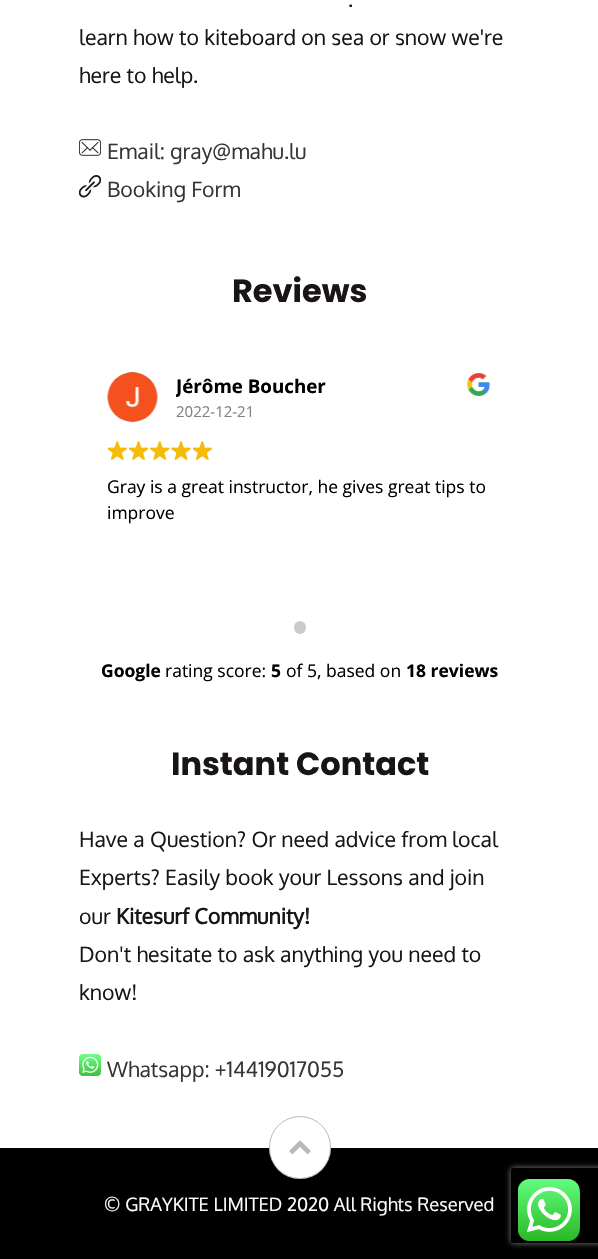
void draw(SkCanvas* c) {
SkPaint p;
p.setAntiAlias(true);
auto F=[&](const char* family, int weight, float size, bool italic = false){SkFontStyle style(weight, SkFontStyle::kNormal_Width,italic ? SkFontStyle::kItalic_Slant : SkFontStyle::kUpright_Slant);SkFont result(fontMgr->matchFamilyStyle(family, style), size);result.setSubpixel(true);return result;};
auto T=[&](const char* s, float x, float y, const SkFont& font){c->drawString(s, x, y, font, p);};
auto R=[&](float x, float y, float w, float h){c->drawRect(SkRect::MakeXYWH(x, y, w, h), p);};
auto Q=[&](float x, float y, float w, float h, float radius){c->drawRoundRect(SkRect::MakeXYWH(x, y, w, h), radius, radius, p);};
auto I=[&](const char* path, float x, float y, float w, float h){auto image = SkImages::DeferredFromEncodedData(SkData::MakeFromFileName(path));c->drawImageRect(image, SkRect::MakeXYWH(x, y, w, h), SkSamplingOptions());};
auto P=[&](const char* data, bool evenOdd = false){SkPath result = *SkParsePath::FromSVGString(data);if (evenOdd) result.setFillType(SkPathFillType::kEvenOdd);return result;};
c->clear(0xffffffff);
auto f1 = F("Oxygen",400,21.25);
p.setColor(0xff191515);
T(".",348,7,f1);
T("learn how to kiteboard on sea or snow we're",79,45,f1);
T("here to help.",79,83,f1);
I("1.png",79,139,22,17);
p.setColor(0xff353535);
T("Email: gray@mahu.lu",107,159,f1);
I("2.png",79,175,22,23);
T("Booking Form",107,197,f1);
auto f2 = F("Poppins",700,32);
p.setColor(0xff191515);
T("Reviews",232,302,f2);
I("3.png",107,372,51,50);
c->save();
c->clipRect(SkRect::MakeXYWH(176,373,315,26));
auto f3 = F("Open Sans",700,18.75);
p.setColor(0xff000000);
T("Jérôme Boucher",176,393,f3);
c->restore();
auto f4 = F("Open Sans",400,15);
p.setColor(0xff808080);
T("2022-12-21",176,417,f4);
I("4.png",467,373,24,23);
I("5.png",108,441,19,19);
I("6.png",129,441,20,19);
I("7.png",150,441,20,19);
I("8.png",171,441,20,19);
I("5.png",193,441,19,19);
auto f5 = F("Open Sans",400,17.5);
p.setColor(0xff000000);
T("Gray is a great instructor, he gives great tips to",107,493,f5);
T("improve",107,519,f5);
p.setColor(0xffcccccc);
Q(294,621,12,13,6);
auto f6 = F("Open Sans",700,17.5);
p.setColor(0xff000000);
T("Google",101,677,f6);
T("rating score:",165,677,f5);
T("5",271,677,f6);
T("of 5,",286,677,f5);
T("based on",326,677,f5);
T("18 reviews",406,677,f6);
p.setColor(0xff191515);
T("Instant Contact",171,775,f2);
T("Have a Question? Or need advice from local",79,847,f1);
T("Experts? Easily book your Lessons and join",79,885,f1);
T("our",79,924,f1);
auto f7 = F("Oxygen",700,21.25);
T("Kitesurf Community!",116,924,f7);
T("Don't hesitate to ask anything you need to",79,962,f1);
T("know!",79,1000,f1);
I("9.png",79,1054,22,22);
p.setColor(0xff353535);
T("Whatsapp: +14419017055",107,1077,f1);
p.setColor(0xff000000);
R(0,1149,598,110);
p.setColor(0xff080606);
R(0,1148,598,1);
p.setColor(0xffffffff);
Q(269,1116,62,63,31);
p.setStroke(true);
p.setStrokeWidth(1);
p.setColor(0x4d191515);
c->drawRoundRect(SkRect::MakeXYWH(269.5,1116.5,61,62),30.5,30.5,p);
I("10.png",289,1140,22,14);
auto f8 = F("Oxygen",400,18.4);
p.setStroke(false);
p.setColor(0xffffffff);
T("© GRAYKITE LIMITED 2020 All Rights Reserved",104,1211,f8);
c->save();
c->clipPath(P("M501 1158h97v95h-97zm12.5 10h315c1.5 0 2.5 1 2.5 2.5v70c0 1.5-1 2.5-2.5 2.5h-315c-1.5 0-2.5-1-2.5-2.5v-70c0-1.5 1-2.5 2.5-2.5z",true),true);
p.setColor(0xff808080);
p.setMaskFilter(SkMaskFilter::MakeBlur(kNormal_SkBlurStyle, 3));
c->drawRoundRect(SkRect::MakeXYWH(511,1168,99,75),2.5,2.5,p);
p.setMaskFilter(nullptr);
c->restore();
I("11.png",518,1179,62,62);
}
